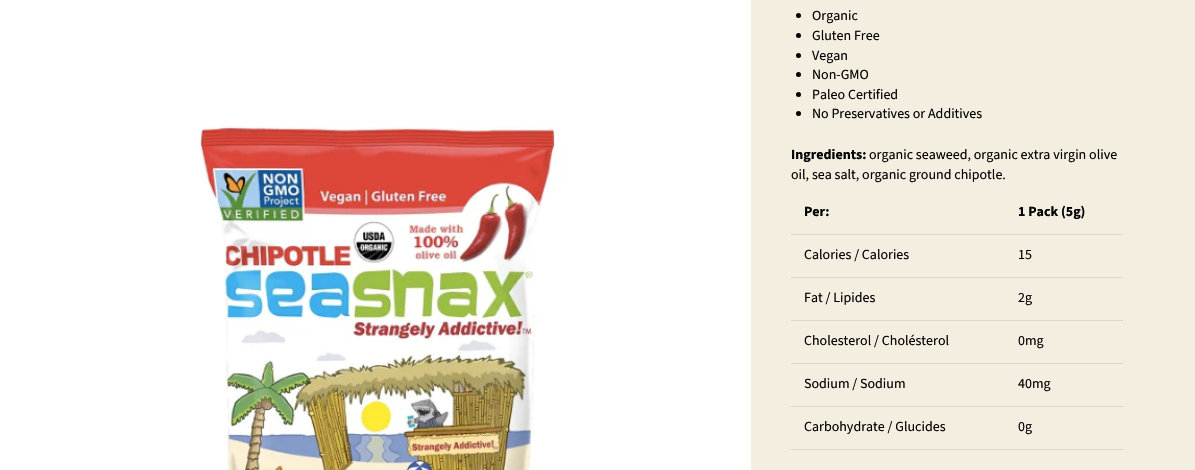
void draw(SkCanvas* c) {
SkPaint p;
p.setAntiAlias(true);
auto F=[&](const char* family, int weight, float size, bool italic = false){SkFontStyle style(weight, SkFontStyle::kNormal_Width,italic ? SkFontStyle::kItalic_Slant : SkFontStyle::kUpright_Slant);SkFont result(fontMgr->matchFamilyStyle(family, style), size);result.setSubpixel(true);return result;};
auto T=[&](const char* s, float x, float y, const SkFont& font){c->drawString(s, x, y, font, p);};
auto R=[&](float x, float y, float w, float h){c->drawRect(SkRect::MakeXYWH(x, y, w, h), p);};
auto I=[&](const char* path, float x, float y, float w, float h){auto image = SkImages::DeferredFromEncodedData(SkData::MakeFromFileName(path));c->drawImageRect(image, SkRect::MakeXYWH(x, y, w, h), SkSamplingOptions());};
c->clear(0xfff4eee1);
I("1.png",0,0,751,470);
p.setColor(0xff000000);
c->drawCircle(798.5,15.5,2.5,p);
auto f1 = F("Source Sans Pro",400,14);
T("Organic",812,20,f1);
c->drawCircle(798.5,35.5,2.5,p);
T("Gluten Free",812,40,f1);
c->drawCircle(798.5,55.5,2.5,p);
T("Vegan",812,60,f1);
c->drawCircle(798.5,74.5,2.5,p);
T("Non-GMO",812,79,f1);
c->drawCircle(798.5,94.5,2.5,p);
T("Paleo Certified",812,99,f1);
c->drawCircle(798.5,113.5,2.5,p);
T("No Preservatives or Additives",812,118,f1);
auto f2 = F("Source Sans Pro",700,14);
T("Ingredients:",791,159,f2);
T("organic seaweed, organic extra virgin olive",869,159,f1);
T("oil, sea salt, organic ground chipotle.",791,179,f1);
p.setColor(0xffdcd6cb);
R(791,234,332,1);
p.setColor(0xff000000);
T("Per:",804,216,f2);
T("1 Pack (5g)",1018,216,f2);
p.setColor(0xffdcd6cb);
R(791,277,332,1);
p.setColor(0xff000000);
T("Calories / Calories",804,259,f1);
T("15",1018,259,f1);
p.setColor(0xffdcd6cb);
R(791,320,332,1);
p.setColor(0xff000000);
T("Fat / Lipides",804,302,f1);
T("2g",1018,302,f1);
p.setColor(0xffdcd6cb);
R(791,363,332,1);
p.setColor(0xff000000);
T("Cholesterol / Cholésterol",804,345,f1);
T("0mg",1018,345,f1);
p.setColor(0xffdcd6cb);
R(791,406,332,1);
p.setColor(0xff000000);
T("Sodium / Sodium",804,388,f1);
T("40mg",1018,388,f1);
p.setColor(0xffdcd6cb);
R(791,449,332,1);
p.setColor(0xff000000);
T("Carbohydrate / Glucides",804,431,f1);
T("0g",1018,431,f1);
}
